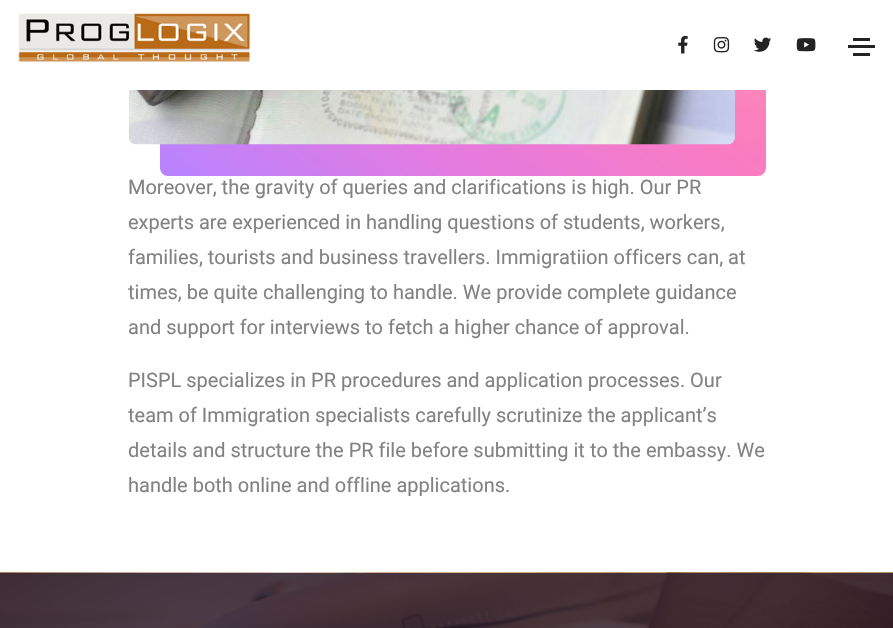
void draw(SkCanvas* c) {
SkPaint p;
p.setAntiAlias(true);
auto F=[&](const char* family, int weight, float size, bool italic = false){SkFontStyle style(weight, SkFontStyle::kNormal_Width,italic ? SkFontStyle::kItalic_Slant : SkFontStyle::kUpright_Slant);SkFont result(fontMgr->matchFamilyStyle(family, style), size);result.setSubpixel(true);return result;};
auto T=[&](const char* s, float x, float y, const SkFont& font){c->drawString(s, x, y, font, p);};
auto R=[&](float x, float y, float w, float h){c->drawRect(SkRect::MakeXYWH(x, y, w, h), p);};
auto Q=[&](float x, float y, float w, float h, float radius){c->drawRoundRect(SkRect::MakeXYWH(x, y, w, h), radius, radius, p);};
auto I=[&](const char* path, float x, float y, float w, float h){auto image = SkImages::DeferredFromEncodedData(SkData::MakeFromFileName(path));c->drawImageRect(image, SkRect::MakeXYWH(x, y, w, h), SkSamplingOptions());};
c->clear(0xffffffff);
{
const SkColor colors[] = {0xffb783ff,0xffe37be0,0xfffa7cc1,0xffff85a6,0xffff9393};
const float stops[] = {0,.25,.5,.75,1};
const SkPoint ends[] = {{240,237}, {686,-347}};
p.setShader(SkGradientShader::MakeLinear(ends, colors, stops, 5, SkTileMode::kClamp));
p.setAlpha(255);
}
Q(160,-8,606,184,8);
I("6.png",128,90,607,55);
p.setShader(nullptr);
p.setColor(0x1affffff);
p.setMaskFilter(SkMaskFilter::MakeBlur(kNormal_SkBlurStyle, 22));
c->drawRect(SkRect::MakeXYWH(0,0,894,90),p);
p.setMaskFilter(nullptr);
p.setColor(0xffffffff);
R(160,0,606,90);
I("1.png",18,13,232,49);
I("2.png",678,35,10,19);
I("3.png",713,37,17,16);
I("4.png",754,37,18,15);
I("5.png",796,38,20,14);
p.setColor(0xff232323);
R(853,38,17,3);
R(848,45,27,3);
R(853,53,17,3);
auto f1 = F("Roboto",400,20);
p.setColor(0xff828282);
T("Moreover, the gravity of queries and clarifications is high. Our PR",128,194,f1);
T("experts are experienced in handling questions of students, workers,",128,229,f1);
T("families, tourists and business travellers. Immigratiion officers can, at",128,264,f1);
T("times, be quite challenging to handle. We provide complete guidance",128,299,f1);
T("and support for interviews to fetch a higher chance of approval.",128,334,f1);
T("PISPL specializes in PR procedures and application processes. Our",128,387,f1);
T("team of Immigration specialists carefully scrutinize the applicant’s",128,422,f1);
T("details and structure the PR file before submitting it to the embassy. We",128,457,f1);
T("handle both online and offline applications.",128,492,f1);
I("7.png",0,572,893,56);
}
